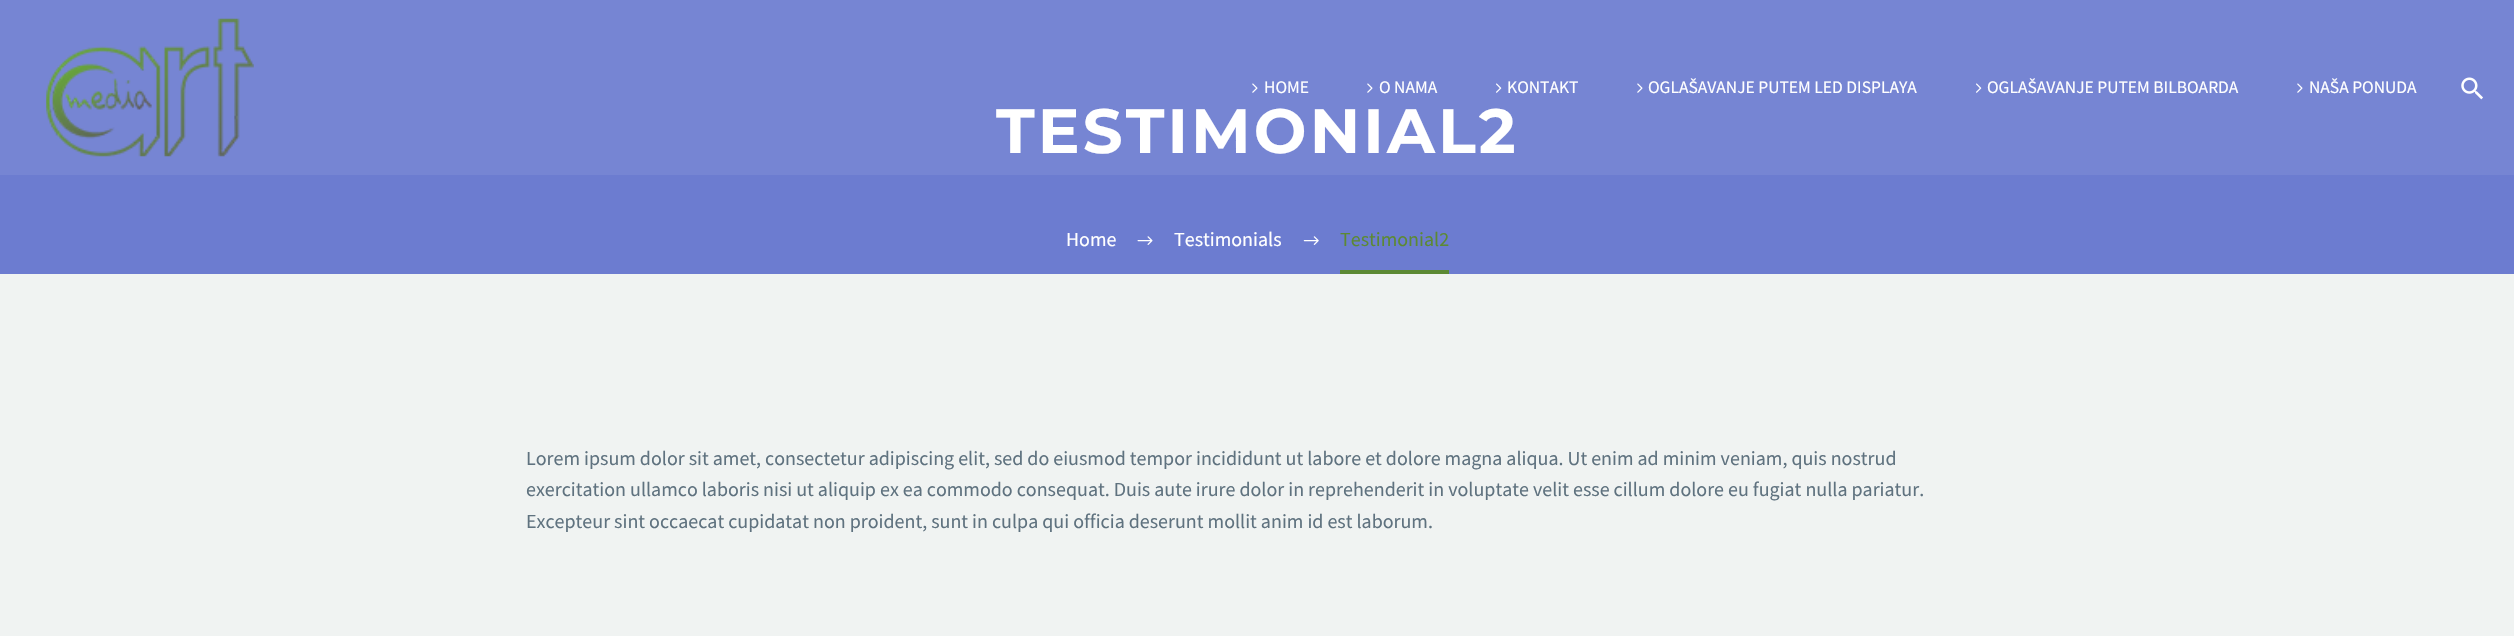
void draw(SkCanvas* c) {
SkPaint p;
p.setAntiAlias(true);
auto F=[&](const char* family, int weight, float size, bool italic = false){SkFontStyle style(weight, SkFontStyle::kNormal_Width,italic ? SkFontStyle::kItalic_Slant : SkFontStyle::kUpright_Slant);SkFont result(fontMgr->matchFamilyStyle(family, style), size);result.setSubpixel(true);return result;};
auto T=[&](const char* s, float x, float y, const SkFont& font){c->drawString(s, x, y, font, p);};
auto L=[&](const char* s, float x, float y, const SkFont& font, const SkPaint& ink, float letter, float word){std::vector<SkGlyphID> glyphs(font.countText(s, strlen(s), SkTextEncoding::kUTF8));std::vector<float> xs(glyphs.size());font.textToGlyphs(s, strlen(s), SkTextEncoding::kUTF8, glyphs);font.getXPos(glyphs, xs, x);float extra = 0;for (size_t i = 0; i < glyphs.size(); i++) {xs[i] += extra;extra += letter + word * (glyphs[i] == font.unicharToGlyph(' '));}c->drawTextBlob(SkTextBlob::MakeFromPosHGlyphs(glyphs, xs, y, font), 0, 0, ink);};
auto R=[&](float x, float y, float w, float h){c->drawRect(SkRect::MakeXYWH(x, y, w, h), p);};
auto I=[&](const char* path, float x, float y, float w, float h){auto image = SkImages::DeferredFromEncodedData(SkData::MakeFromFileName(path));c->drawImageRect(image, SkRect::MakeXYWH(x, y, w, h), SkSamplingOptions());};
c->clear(0xfff0f3f2);
p.setColor(0xff7685d3);
R(0,0,2514,175);
I("1.png",46,18,208,139);
I("2.png",1252,83,6,10);
auto f1 = F("Source Sans Pro",400,17.5);
p.setColor(0xffffffff);
T("HOME",1264,93,f1);
I("2.png",1367,83,6,10);
T("O NAMA",1379,93,f1);
I("3.png",1496,83,6,10);
T("KONTAKT",1507,93,f1);
I("2.png",1637,83,6,10);
T("OGLAŠAVANJE PUTEM LED DISPLAYA",1648,93,f1);
I("3.png",1976,83,6,10);
T("OGLAŠAVANJE PUTEM BILBOARDA",1987,93,f1);
I("2.png",2297,83,6,10);
T("NAŠA PONUDA",2309,93,f1);
I("4.png",2461,77,22,23);
p.setColor(0xff6c7cd0);
R(0,175,2514,99);
auto f2 = F("Montserrat",700,62.5);
p.setColor(0xffffffff);
L("TESTIMONIAL2",996,153,f2,p,3.1,0);
auto f3 = F("Source Sans Pro",400,20);
T("Home",1066,246,f3);
I("5.png",1137,236,16,9);
T("Testimonials",1174,246,f3);
I("6.png",1303,236,16,9);
p.setColor(0xff5c8934);
R(1340,270,109,4);
T("Testimonial2",1340,246,f3);
p.setColor(0xff5f727f);
T("Lorem ipsum dolor sit amet, consectetur adipiscing elit, sed do eiusmod tempor incididunt ut labore et dolore magna aliqua. Ut enim ad minim veniam, quis nostrud",526,465,f3);
T("exercitation ullamco laboris nisi ut aliquip ex ea commodo consequat. Duis aute irure dolor in reprehenderit in voluptate velit esse cillum dolore eu fugiat nulla pariatur.",526,496,f3);
T("Excepteur sint occaecat cupidatat non proident, sunt in culpa qui officia deserunt mollit anim id est laborum.",526,528,f3);
}
